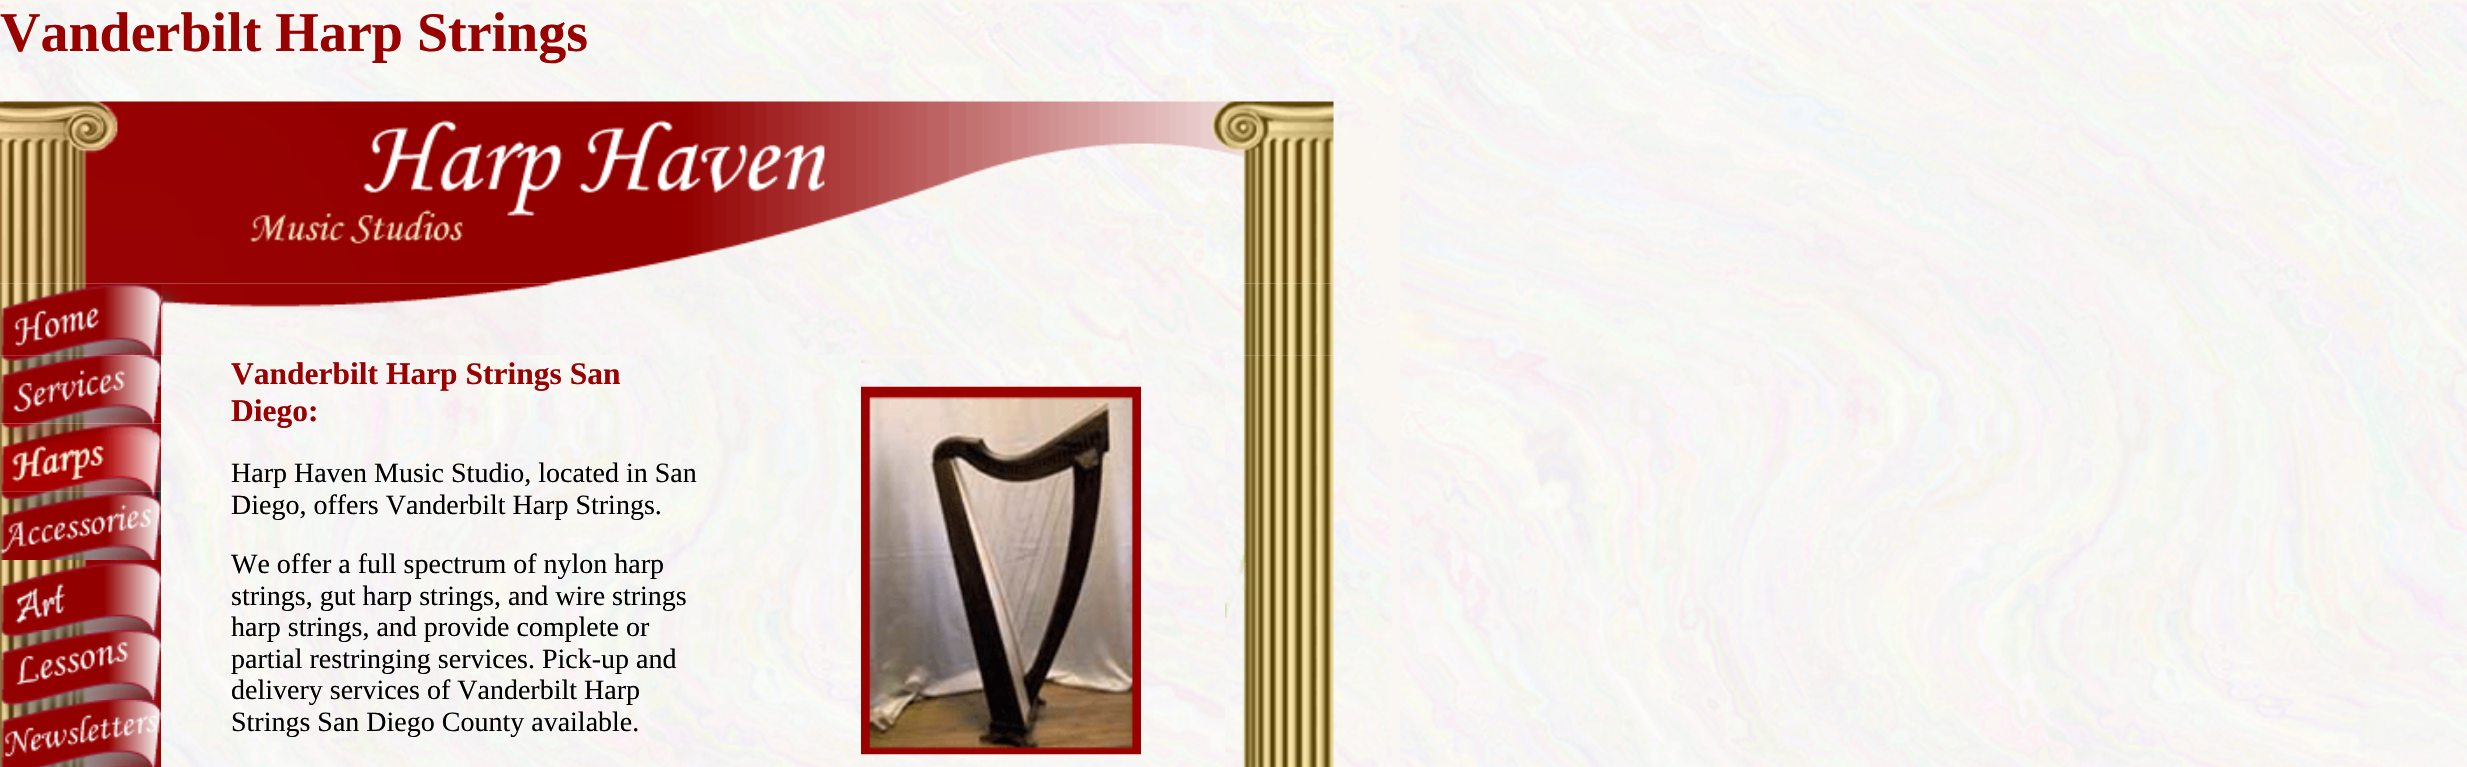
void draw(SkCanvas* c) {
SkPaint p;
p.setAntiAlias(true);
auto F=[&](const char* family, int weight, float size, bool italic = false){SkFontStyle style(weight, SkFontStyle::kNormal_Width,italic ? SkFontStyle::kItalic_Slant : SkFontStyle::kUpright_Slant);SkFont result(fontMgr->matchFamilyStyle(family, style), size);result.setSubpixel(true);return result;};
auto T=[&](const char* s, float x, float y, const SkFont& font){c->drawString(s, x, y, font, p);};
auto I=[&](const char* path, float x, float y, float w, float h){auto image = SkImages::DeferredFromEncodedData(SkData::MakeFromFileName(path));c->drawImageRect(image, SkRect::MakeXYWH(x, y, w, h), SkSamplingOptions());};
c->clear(0xffffffff);
I("1.png",0,0,2467,767);
auto f1 = F("Liberation Serif",700,56);
p.setColor(0xff990000);
T("Vanderbilt Harp Strings",0,51,f1);
I("2.png",0,101,1334,183);
I("3.png",0,283,161,73);
I("4.png",0,355,161,69);
I("5.png",0,423,161,69);
I("6.png",0,491,161,69);
I("7.png",0,560,161,70);
I("8.png",0,630,161,70);
I("9.png",0,700,161,67);
I("11.png",861,355,282,399);
I("10.png",161,283,1173,73);
auto f2 = F("Liberation Serif",700,31.5);
T("Vanderbilt Harp Strings San",231,384,f2);
T("Diego:",231,421,f2);
auto f3 = F("Liberation Serif",400,28);
p.setColor(0xff000000);
T("Harp Haven Music Studio, located in San",231,482,f3);
T("Diego, offers Vanderbilt Harp Strings.",231,514,f3);
T("We offer a full spectrum of nylon harp",231,573,f3);
T("strings, gut harp strings, and wire strings",231,605,f3);
T("harp strings, and provide complete or",231,636,f3);
T("partial restringing services. Pick-up and",231,668,f3);
T("delivery services of Vanderbilt Harp",231,699,f3);
T("Strings San Diego County available.",231,731,f3);
I("12.png",861,386,280,369);
I("13.png",1225,355,109,412);
}
